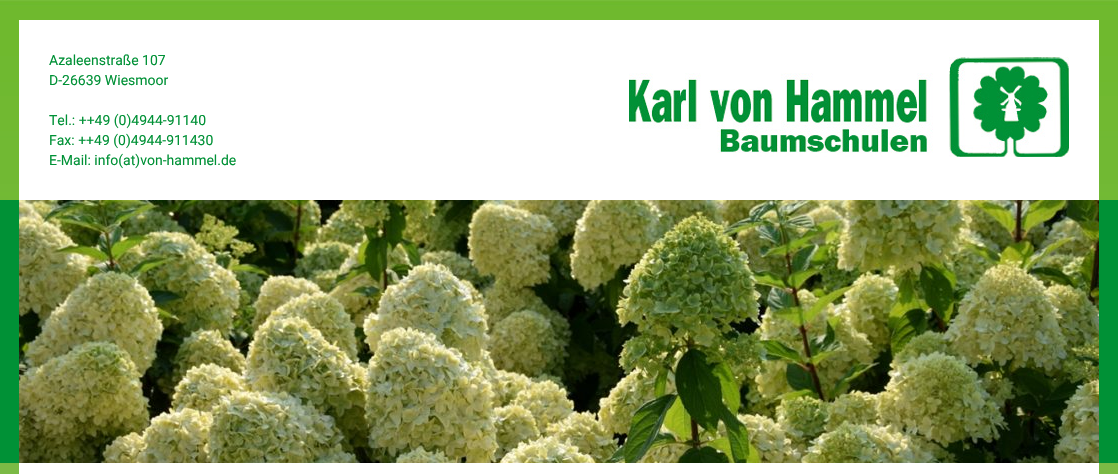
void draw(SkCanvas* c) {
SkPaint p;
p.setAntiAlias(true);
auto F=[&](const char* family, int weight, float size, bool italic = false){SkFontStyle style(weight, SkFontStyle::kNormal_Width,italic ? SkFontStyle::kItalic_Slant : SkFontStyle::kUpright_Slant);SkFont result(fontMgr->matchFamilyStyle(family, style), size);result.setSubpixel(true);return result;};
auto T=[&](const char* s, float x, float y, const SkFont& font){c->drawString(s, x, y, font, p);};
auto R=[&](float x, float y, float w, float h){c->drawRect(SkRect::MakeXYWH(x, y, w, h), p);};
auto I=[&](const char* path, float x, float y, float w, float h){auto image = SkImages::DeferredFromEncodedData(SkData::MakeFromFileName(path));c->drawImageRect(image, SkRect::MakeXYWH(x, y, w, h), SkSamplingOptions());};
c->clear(0xffffffff);
I("1.png",0,0,1118,474);
p.setColor(0xffffffff);
R(19,20,1080,180);
auto f1 = F("Roboto",400,14);
p.setColor(0xff009136);
T("Azaleenstraße 107",49,65,f1);
T("D-26639 Wiesmoor",49,85,f1);
T("Tel.: ++49 (0)4944-91140",49,125,f1);
T("Fax: ++49 (0)4944-911430",49,145,f1);
T("E-Mail: info(at)von-hammel.de",49,165,f1);
I("2.png",629,57,440,100);
R(0,200,1118,263);
I("3.png",19,200,1080,263);
p.setColor(0xffffffff);
R(19,463,1080,11);
}
